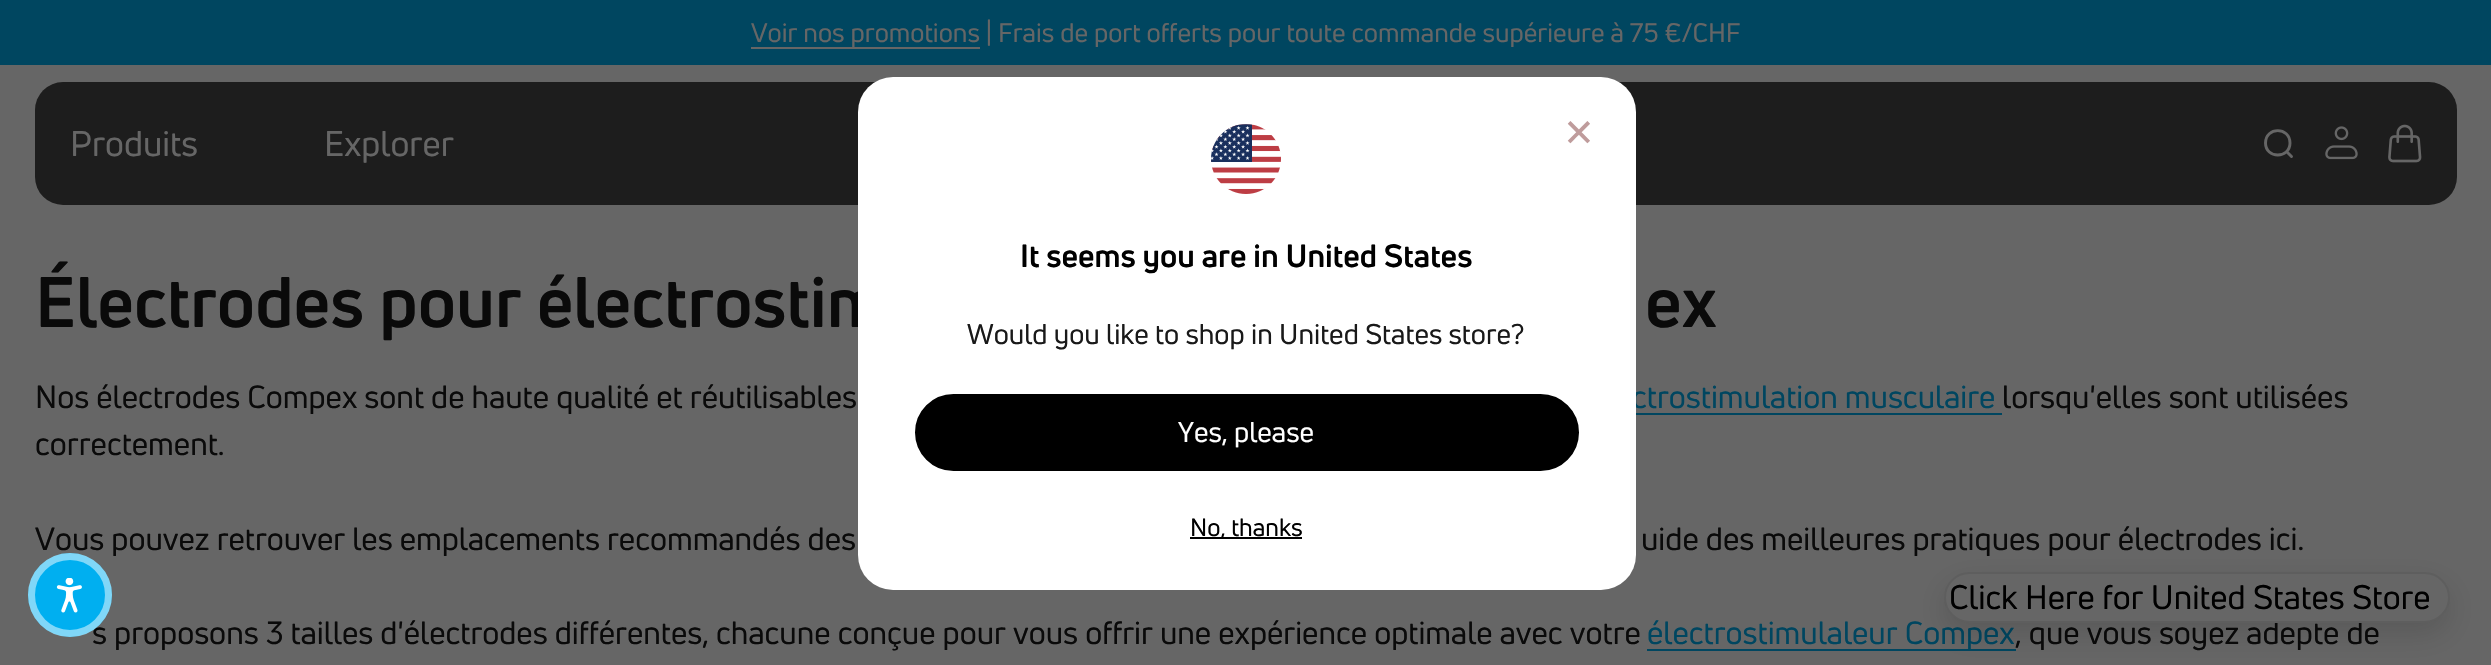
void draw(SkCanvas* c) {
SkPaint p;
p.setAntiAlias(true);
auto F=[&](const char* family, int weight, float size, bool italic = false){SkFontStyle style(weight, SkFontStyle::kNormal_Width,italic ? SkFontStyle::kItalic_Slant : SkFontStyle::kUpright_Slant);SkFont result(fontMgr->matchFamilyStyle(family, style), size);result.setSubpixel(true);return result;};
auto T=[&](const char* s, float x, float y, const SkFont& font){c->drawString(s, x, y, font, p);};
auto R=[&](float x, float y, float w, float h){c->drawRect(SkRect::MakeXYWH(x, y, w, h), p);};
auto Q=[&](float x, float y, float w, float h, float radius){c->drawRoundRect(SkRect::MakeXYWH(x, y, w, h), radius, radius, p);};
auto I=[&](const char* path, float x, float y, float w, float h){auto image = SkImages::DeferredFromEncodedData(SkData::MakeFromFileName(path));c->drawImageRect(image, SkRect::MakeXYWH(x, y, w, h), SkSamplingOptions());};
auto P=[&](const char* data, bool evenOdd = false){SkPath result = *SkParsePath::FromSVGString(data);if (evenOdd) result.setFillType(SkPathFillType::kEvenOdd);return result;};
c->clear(0xff666666);
p.setColor(0xff004660);
R(0,0,2491,65);
auto f1 = F("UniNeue",400,26.25);
p.setColor(0xff666666);
T("Voir nos promotions | Frais de port offerts pour toute commande supérieure à 75 €/CHF",751,42,f1);
R(751,47,229,2);
p.setColor(0xcc0a0a0a);
Q(35,82,2422,123,28);
auto f2 = F("UniNeue",400,35);
p.setColor(0xff666666);
T("Produits",70,156,f2);
T("Explorer",324,156,f2);
p.setStroke(true);
p.setStrokeWidth(2.9);
p.setStrokeCap(SkPaint::kRound_Cap);
p.setStrokeJoin(SkPaint::kRound_Join);
c->drawPath(P("M2291.5 156.5l-5-5m3.5-8.5c0 16-24.5 16-24.5 0c0-16.5 24.5-16.5 24.5 0z"),p);
I("1.png",2325,126,33,34);
I("2.png",2388,124,34,39);
auto f3 = F("UniNeue",700,70);
p.setStroke(false);
p.setColor(0xff0a0a0a);
T("Électrodes pour électrostim",35,327,f3);
T("ex",1645,327,f3);
auto f4 = F("UniNeue",400,31.5);
T("Nos électrodes Compex sont de haute qualité et réutilisables",35,408,f4);
p.setColor(0xff004660);
T("ctrostimulation musculaire",1632,408,f4);
R(1636,413,366,2);
p.setColor(0xff0a0a0a);
T("lorsqu'elles sont utilisées",2002,408,f4);
T("correctement.",35,455,f4);
T("Vous pouvez retrouver les emplacements recommandés des",35,550,f4);
T("uide des meilleures pratiques pour électrodes ici.",1641,550,f4);
T("s proposons 3 tailles d'électrodes différentes, chacune conçue pour vous offrir une expérience optimale avec votre",92,644,f4);
p.setColor(0xff004660);
R(1647,649,369,2);
T("électrostimulaleur Compex",1647,644,f4);
p.setColor(0xff0a0a0a);
T(", que vous soyez adepte de",2015,644,f4);
p.setColor(0xff00aff0);
c->drawCircle(70,595,42,p);
p.setStroke(true);
p.setStrokeWidth(7);
p.setStrokeCap(SkPaint::kButt_Cap);
p.setStrokeJoin(SkPaint::kMiter_Join);
p.setColor(0x80ffffff);
c->drawCircle(70,595,38.5,p);
I("3.png",56,578,26,35);
p.setStroke(false);
p.setColor(0xffffffff);
Q(858,77,778,513,35);
auto f5 = F("DejaVu Sans",400,38);
p.setColor(0xffbf9c9c);
T("✕",1563,146,f5);
I("4.png",1211,124,70,70);
auto f6 = F("UniNeue",700,31.5);
p.setColor(0xff000000);
T("It seems you are in United States",1020,267,f6);
auto f7 = F("UniNeue",400,28);
p.setColor(0xff191919);
T("Would you like to shop in United States store?",967,344,f7);
p.setColor(0xff000000);
c->drawRoundRect(SkRect::MakeXYWH(916,395,662,75),37.5,37.5,p);
p.setStroke(true);
p.setStrokeWidth(2);
c->drawRoundRect(SkRect::MakeXYWH(916,395,662,75),37.5,37.5,p);
p.setStroke(false);
p.setColor(0xffffffff);
T("Yes, please",1178,442,f7);
p.setColor(0xff000000);
R(1190,537,112,2);
auto f8 = F("UniNeue",400,24.5);
T("No, thanks",1190,536,f8);
p.setColor(0x1f000000);
p.setMaskFilter(SkMaskFilter::MakeBlur(kNormal_SkBlurStyle, 14));
c->drawRoundRect(SkRect::MakeXYWH(1944,583,506,51),25.5,25.5,p);
p.setMaskFilter(nullptr);
p.setColor(0xff666666);
Q(1944,572,506,51,25.5);
p.setStroke(true);
p.setColor(0x14000000);
c->drawRoundRect(SkRect::MakeXYWH(1945,573,504,49),24.5,24.5,p);
auto f9 = F("UniNeue",400,33.25);
p.setStroke(false);
p.setColor(0xff000000);
T("Click Here for United States Store",1949,609,f9);
}
